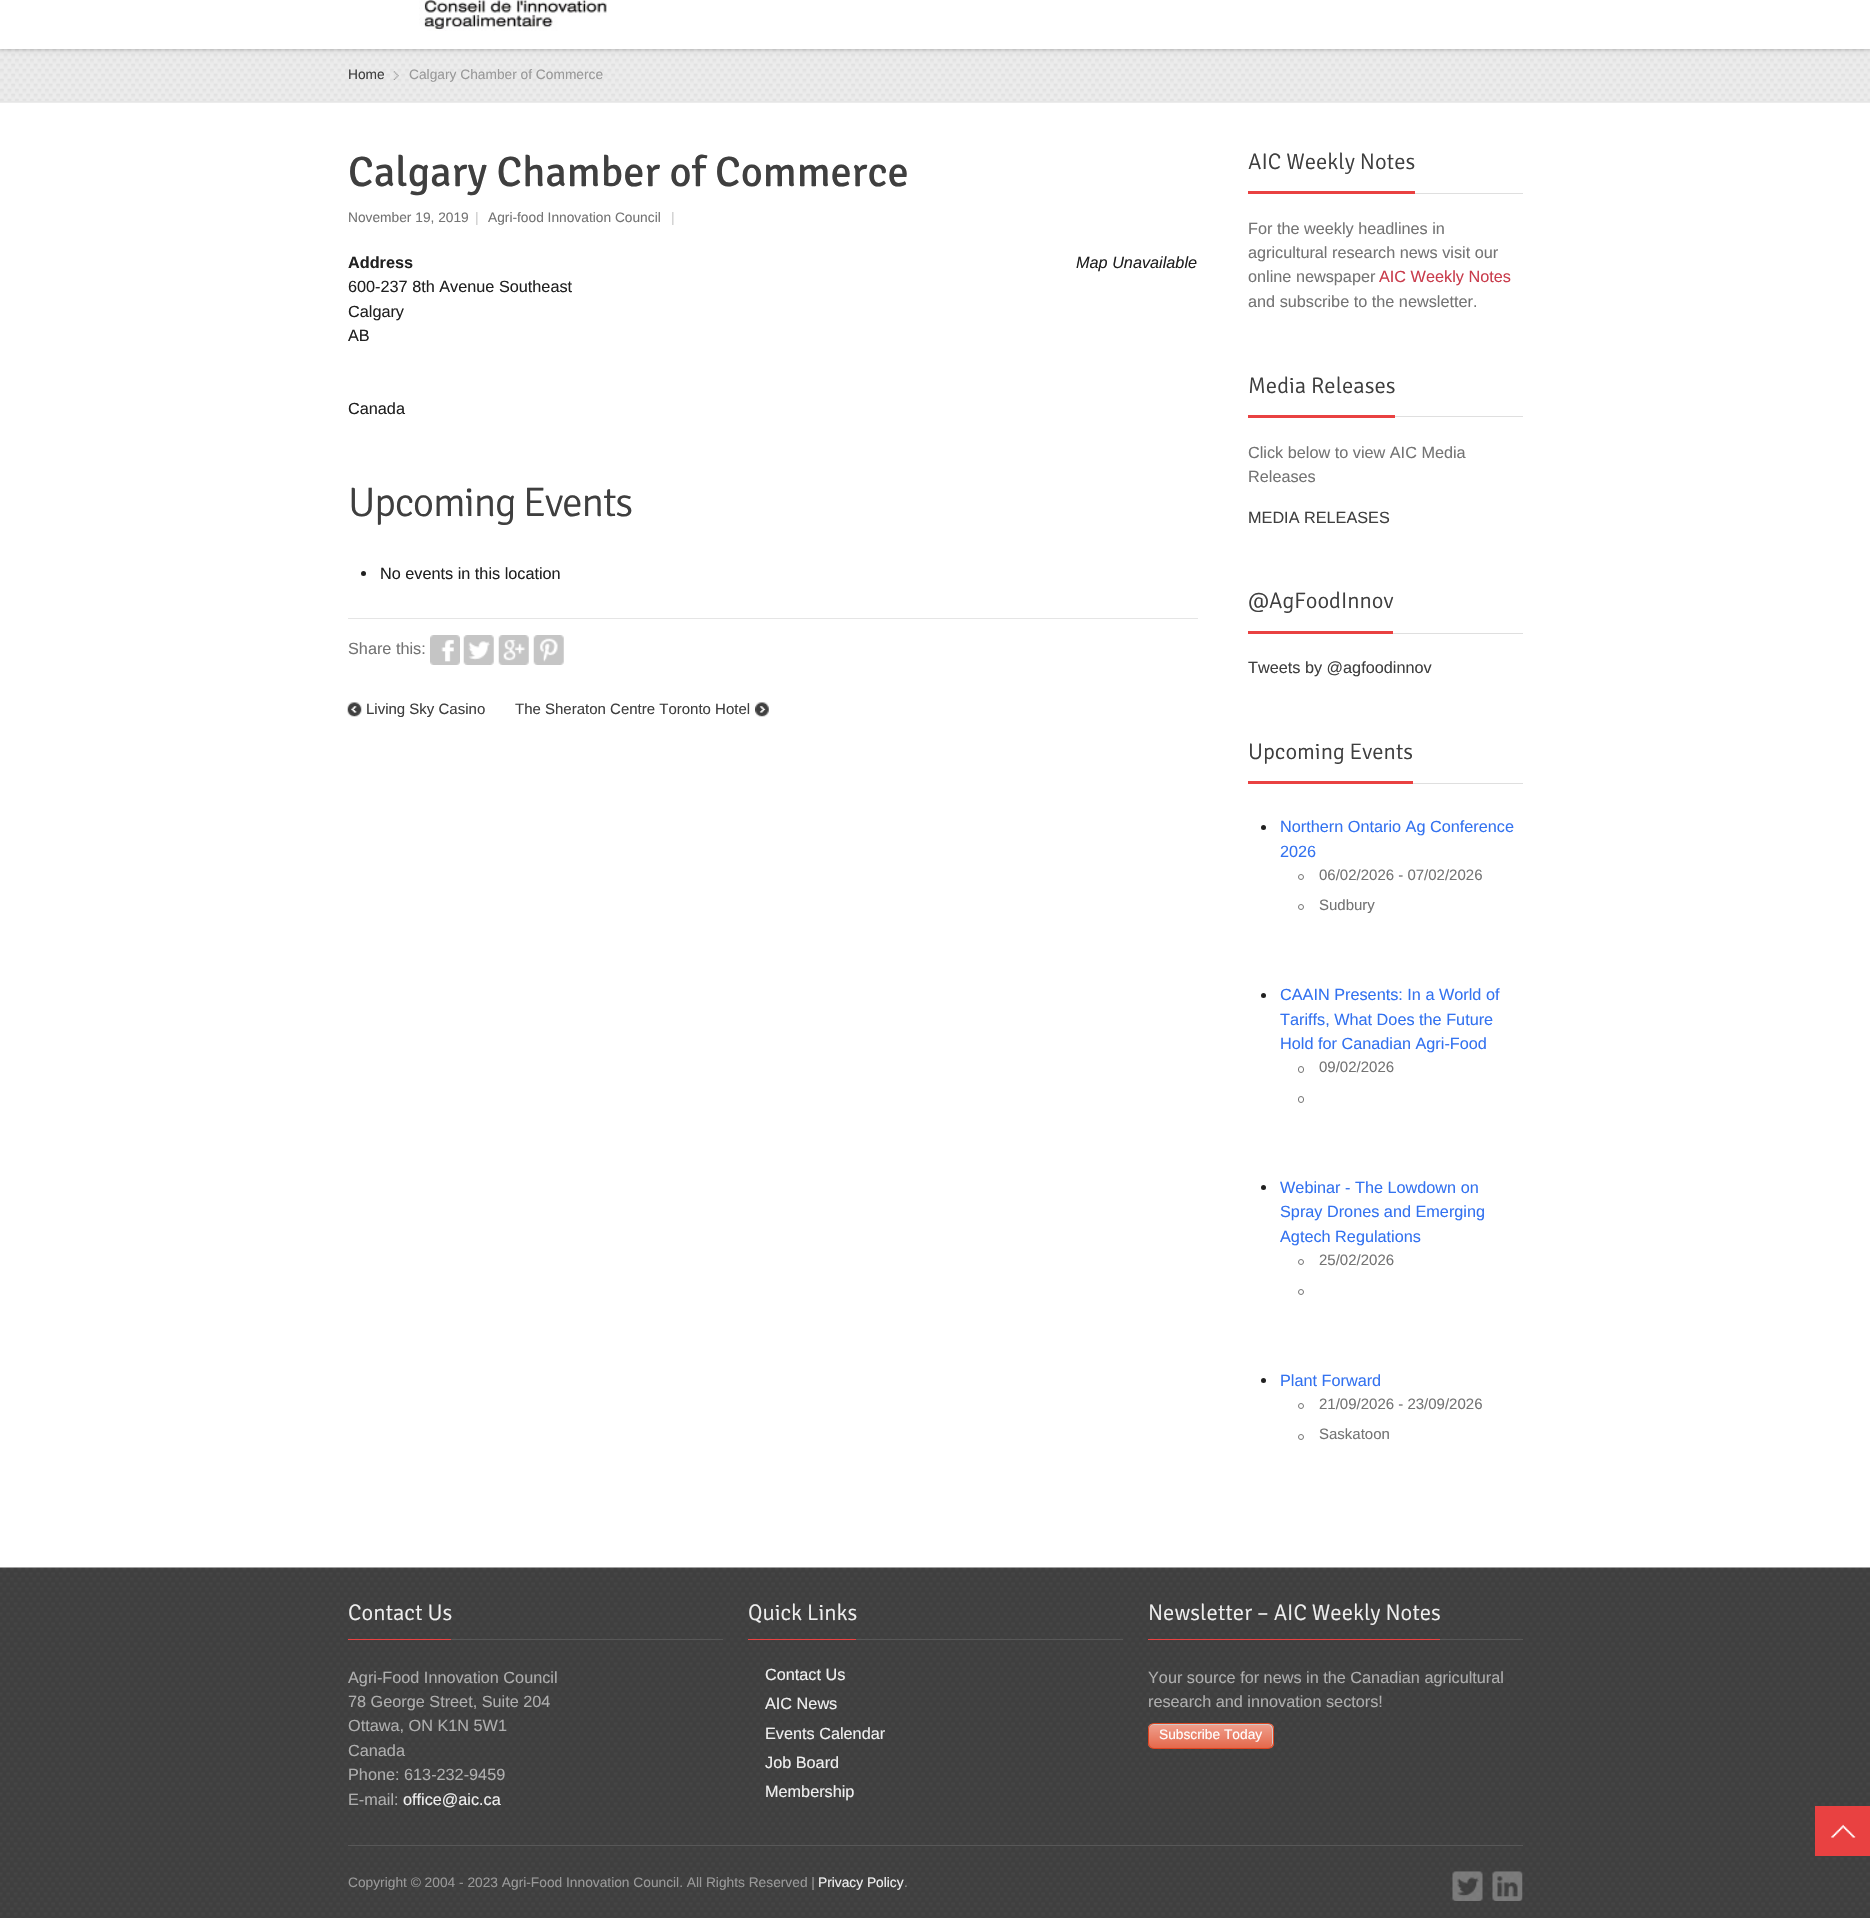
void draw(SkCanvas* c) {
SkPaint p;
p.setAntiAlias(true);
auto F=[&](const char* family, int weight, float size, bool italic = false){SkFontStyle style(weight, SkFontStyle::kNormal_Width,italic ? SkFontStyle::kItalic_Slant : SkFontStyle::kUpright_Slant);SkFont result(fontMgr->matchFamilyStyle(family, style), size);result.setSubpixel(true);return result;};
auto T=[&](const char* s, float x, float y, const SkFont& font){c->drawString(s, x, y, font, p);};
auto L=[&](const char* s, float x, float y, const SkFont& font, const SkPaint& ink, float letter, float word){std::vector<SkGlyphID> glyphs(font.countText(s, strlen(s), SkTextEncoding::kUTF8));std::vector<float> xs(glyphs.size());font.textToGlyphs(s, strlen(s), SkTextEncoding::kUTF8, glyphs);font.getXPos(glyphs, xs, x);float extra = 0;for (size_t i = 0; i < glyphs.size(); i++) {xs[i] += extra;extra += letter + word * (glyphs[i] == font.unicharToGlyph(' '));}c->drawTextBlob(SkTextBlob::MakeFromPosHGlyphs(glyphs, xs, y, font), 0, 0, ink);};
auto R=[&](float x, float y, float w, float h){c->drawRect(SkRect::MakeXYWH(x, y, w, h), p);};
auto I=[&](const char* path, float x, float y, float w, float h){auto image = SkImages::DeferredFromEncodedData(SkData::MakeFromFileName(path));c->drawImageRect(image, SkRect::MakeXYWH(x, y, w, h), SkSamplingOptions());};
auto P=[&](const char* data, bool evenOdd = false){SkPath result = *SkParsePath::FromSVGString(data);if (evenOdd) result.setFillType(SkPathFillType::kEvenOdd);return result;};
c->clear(0xffffffff);
p.setColor(0xffececec);
R(0,49,1870,54);
I("2.png",0,49,1870,52);
p.setColor(0x4d000000);
p.setMaskFilter(SkMaskFilter::MakeBlur(kNormal_SkBlurStyle, 2.5));
c->drawRect(SkRect::MakeXYWH(0,-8,1870,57),p);
p.setMaskFilter(nullptr);
p.setColor(0xffffffff);
R(0,0,1870,49);
I("1.png",419,0,188,31);
p.setColor(0xffe6e6e6);
R(0,101,1870,1);
auto f1 = F("Liberation Sans",400,13.75);
p.setColor(0xff3f3f3f);
T("Home",348,79,f1);
I("3.png",393,71,6,9);
p.setColor(0xff999999);
T("Calgary Chamber of Commerce",409,79,f1);
auto f2 = F("Signika",400,42.5);
p.setColor(0xff3f3f3f);
T("Calgary Chamber of Commerce",348,186,f2);
p.setColor(0xff747474);
T("November 19, 2019",348,222,f1);
p.setColor(0xffcccccc);
T("|",475,222,f1);
p.setColor(0xff747474);
T("Agri-food Innovation Council",488,222,f1);
p.setColor(0xffcccccc);
T("|",671,222,f1);
auto f3 = F("Liberation Sans",700,16.25);
p.setColor(0xff212121);
T("Address",348,268,f3);
auto f4 = F("Liberation Sans",400,16.25);
T("600-237 8th Avenue Southeast",348,292,f4);
T("Calgary",348,317,f4);
T("AB",348,341,f4);
T("Canada",348,414,f4);
auto f5 = F("Liberation Sans",400,16.25,true);
T("Map Unavailable",1076,268,f5);
auto f6 = F("Signika",300,41.25);
p.setColor(0xff3f3f3f);
L("Upcoming Events",348,516,f6,p,-1.25,0);
p.setColor(0xff212121);
c->drawCircle(363.5,573.5,2.5,p);
T("No events in this location",380,579,f4);
p.setColor(0xffe5e5e5);
R(348,618,850,1);
p.setColor(0xff747474);
T("Share this:",348,654,f4);
I("4.png",430,635,30,30);
I("5.png",463,635,31,30);
I("6.png",498,635,31,30);
I("7.png",533,635,31,30);
I("8.png",347,702,15,15);
auto f7 = F("Liberation Sans",400,15);
p.setColor(0xff3f3f3f);
T("Living Sky Casino",366,714,f7);
I("9.png",755,702,14,15);
T("The Sheraton Centre Toronto Hotel",515,714,f7);
p.setColor(0xffdfdfdf);
R(1415,193,108,1);
p.setColor(0xffe94141);
R(1248,191,167,3);
auto f8 = F("Signika",300,22.5);
p.setColor(0xff3f3f3f);
T("AIC Weekly Notes",1248,169,f8);
p.setColor(0xff747474);
T("For the weekly headlines in",1248,234,f4);
T("agricultural research news visit our",1248,258,f4);
T("online newspaper",1248,282,f4);
p.setColor(0xffc93c4c);
T("AIC Weekly Notes",1379,282,f4);
p.setColor(0xff747474);
T("and subscribe to the newsletter.",1248,307,f4);
p.setColor(0xffdfdfdf);
R(1395,416,128,1);
p.setColor(0xffe94141);
R(1248,415,147,3);
p.setColor(0xff3f3f3f);
T("Media Releases",1248,393,f8);
p.setColor(0xff747474);
T("Click below to view AIC Media",1248,458,f4);
T("Releases",1248,482,f4);
p.setColor(0xff3f3f3f);
T("MEDIA RELEASES",1248,523,f4);
p.setColor(0xffdfdfdf);
R(1393,633,130,1);
p.setColor(0xffe94141);
R(1248,631,145,3);
p.setColor(0xff3f3f3f);
T("@AgFoodInnov",1248,608,f8);
T("Tweets by @agfoodinnov",1248,673,f4);
p.setColor(0xffdfdfdf);
R(1413,783,110,1);
p.setColor(0xffe94141);
R(1248,781,165,3);
p.setColor(0xff3f3f3f);
T("Upcoming Events",1248,759,f8);
p.setColor(0xff212121);
c->drawCircle(1263.5,827.5,2.5,p);
p.setColor(0xff3372f0);
T("Northern Ontario Ag Conference",1280,832,f4);
T("2026",1280,857,f4);
p.setStroke(true);
p.setStrokeWidth(1);
p.setColor(0xff747474);
c->drawCircle(1301,877,2.5,p);
p.setStroke(false);
T("06/02/2026 - 07/02/2026",1319,880,f7);
p.setStroke(true);
c->drawCircle(1301,907,2.5,p);
p.setStroke(false);
T("Sudbury",1319,910,f7);
p.setColor(0xff212121);
c->drawCircle(1263.5,995.5,2.5,p);
p.setColor(0xff3372f0);
T("CAAIN Presents: In a World of",1280,1000,f4);
T("Tariffs, What Does the Future",1280,1025,f4);
T("Hold for Canadian Agri-Food",1280,1049,f4);
p.setStroke(true);
p.setColor(0xff747474);
c->drawRoundRect(SkRect::MakeXYWH(1298.5,1066.5,5,6),2.5,2.5,p);
p.setStroke(false);
T("09/02/2026",1319,1072,f7);
p.setStroke(true);
c->drawRoundRect(SkRect::MakeXYWH(1298.5,1096.5,5,6),2.5,2.5,p);
p.setStroke(false);
p.setColor(0xff212121);
c->drawCircle(1263.5,1187.5,2.5,p);
p.setColor(0xff3372f0);
T("Webinar - The Lowdown on",1280,1193,f4);
T("Spray Drones and Emerging",1280,1217,f4);
T("Agtech Regulations",1280,1242,f4);
p.setStroke(true);
p.setColor(0xff747474);
c->drawCircle(1301,1262,2.5,p);
p.setStroke(false);
T("25/02/2026",1319,1265,f7);
p.setStroke(true);
c->drawCircle(1301,1292,2.5,p);
p.setStroke(false);
p.setColor(0xff212121);
c->drawCircle(1263.5,1380.5,2.5,p);
p.setColor(0xff3372f0);
T("Plant Forward",1280,1386,f4);
p.setStroke(true);
p.setColor(0xff747474);
c->drawCircle(1301,1406,2.5,p);
p.setStroke(false);
T("21/09/2026 - 23/09/2026",1319,1409,f7);
p.setStroke(true);
c->drawCircle(1301,1437,2.5,p);
p.setStroke(false);
T("Saskatoon",1319,1439,f7);
I("11.png",0,1567,1870,351);
p.setColor(0xffe94141);
R(1815,1806,55,50);
I("10.png",1831,1824,25,14);
p.setColor(0xff575757);
R(451,1639,272,1);
p.setColor(0xffe94141);
R(348,1639,103,1);
p.setColor(0xffefefef);
T("Contact Us",348,1620,f8);
p.setColor(0xffaeaeae);
T("Agri-Food Innovation Council",348,1683,f4);
T("78 George Street, Suite 204",348,1707,f4);
T("Ottawa, ON K1N 5W1",348,1731,f4);
T("Canada",348,1756,f4);
T("Phone: 613-232-9459",348,1780,f4);
T("E-mail:",348,1805,f4);
p.setColor(0xffefefef);
T("office@aic.ca",403,1805,f4);
p.setColor(0xff575757);
R(856,1639,267,1);
p.setColor(0xffe94141);
R(748,1639,108,1);
p.setColor(0xffefefef);
T("Quick Links",748,1620,f8);
T("Contact Us",765,1680,f4);
T("AIC News",765,1709,f4);
T("Events Calendar",765,1739,f4);
T("Job Board",765,1768,f4);
T("Membership",765,1797,f4);
p.setColor(0xff575757);
R(1440,1639,83,1);
p.setColor(0xffe94141);
R(1148,1639,292,1);
p.setColor(0xffefefef);
T("Newsletter – AIC Weekly Notes",1148,1620,f8);
p.setColor(0xffaeaeae);
T("Your source for news in the Canadian agricultural",1148,1683,f4);
T("research and innovation sectors!",1148,1707,f4);
c->save();
c->clipPath(P("M1154 1723h114c3.5 0 6 2.5 6 6v14c0 3.5-2.5 6-6 6h-114c-3.5 0-6-2.5-6-6v-14c0-3.5 2.5-6 6-6z"),true);
{
const SkColor colors[] = {0xffefa08e,0xffe5684b};
const float stops[] = {0,1};
const SkPoint ends[] = {{1149,1724}, {1149,1748}};
p.setShader(SkGradientShader::MakeLinear(ends, colors, stops, 2, SkTileMode::kClamp));
p.setAlpha(255);
}
R(1148,1724,126,24);
c->restore();
p.setShader(nullptr);
p.setColor(0xffcccccc);
c->drawPath(P("M1154 1725h114c2 0 4 2 4 5v14l-1 3c1-1 2-3 2-4v-14c0-3-2-5-5-5h-114c-3 0-5 2-5 5v1c0-3 2-5 5-5z"),p);
p.setStroke(true);
p.setColor(0xffdd4420);
c->drawRoundRect(SkRect::MakeXYWH(1148.5,1723.5,125,25),5.5,5.5,p);
p.setStroke(false);
p.setColor(0xffffffff);
T("Subscribe Today",1159,1739,f1);
p.setColor(0xff575757);
R(348,1845,1175,1);
p.setColor(0xff999999);
T("Copyright © 2004 - 2023 Agri-Food Innovation Council. All Rights Reserved |",348,1887,f1);
p.setColor(0xffefefef);
T("Privacy Policy",818,1887,f1);
p.setColor(0xff999999);
T(".",904,1887,f1);
I("12.png",1452,1871,31,30);
I("13.png",1492,1871,31,30);
}
